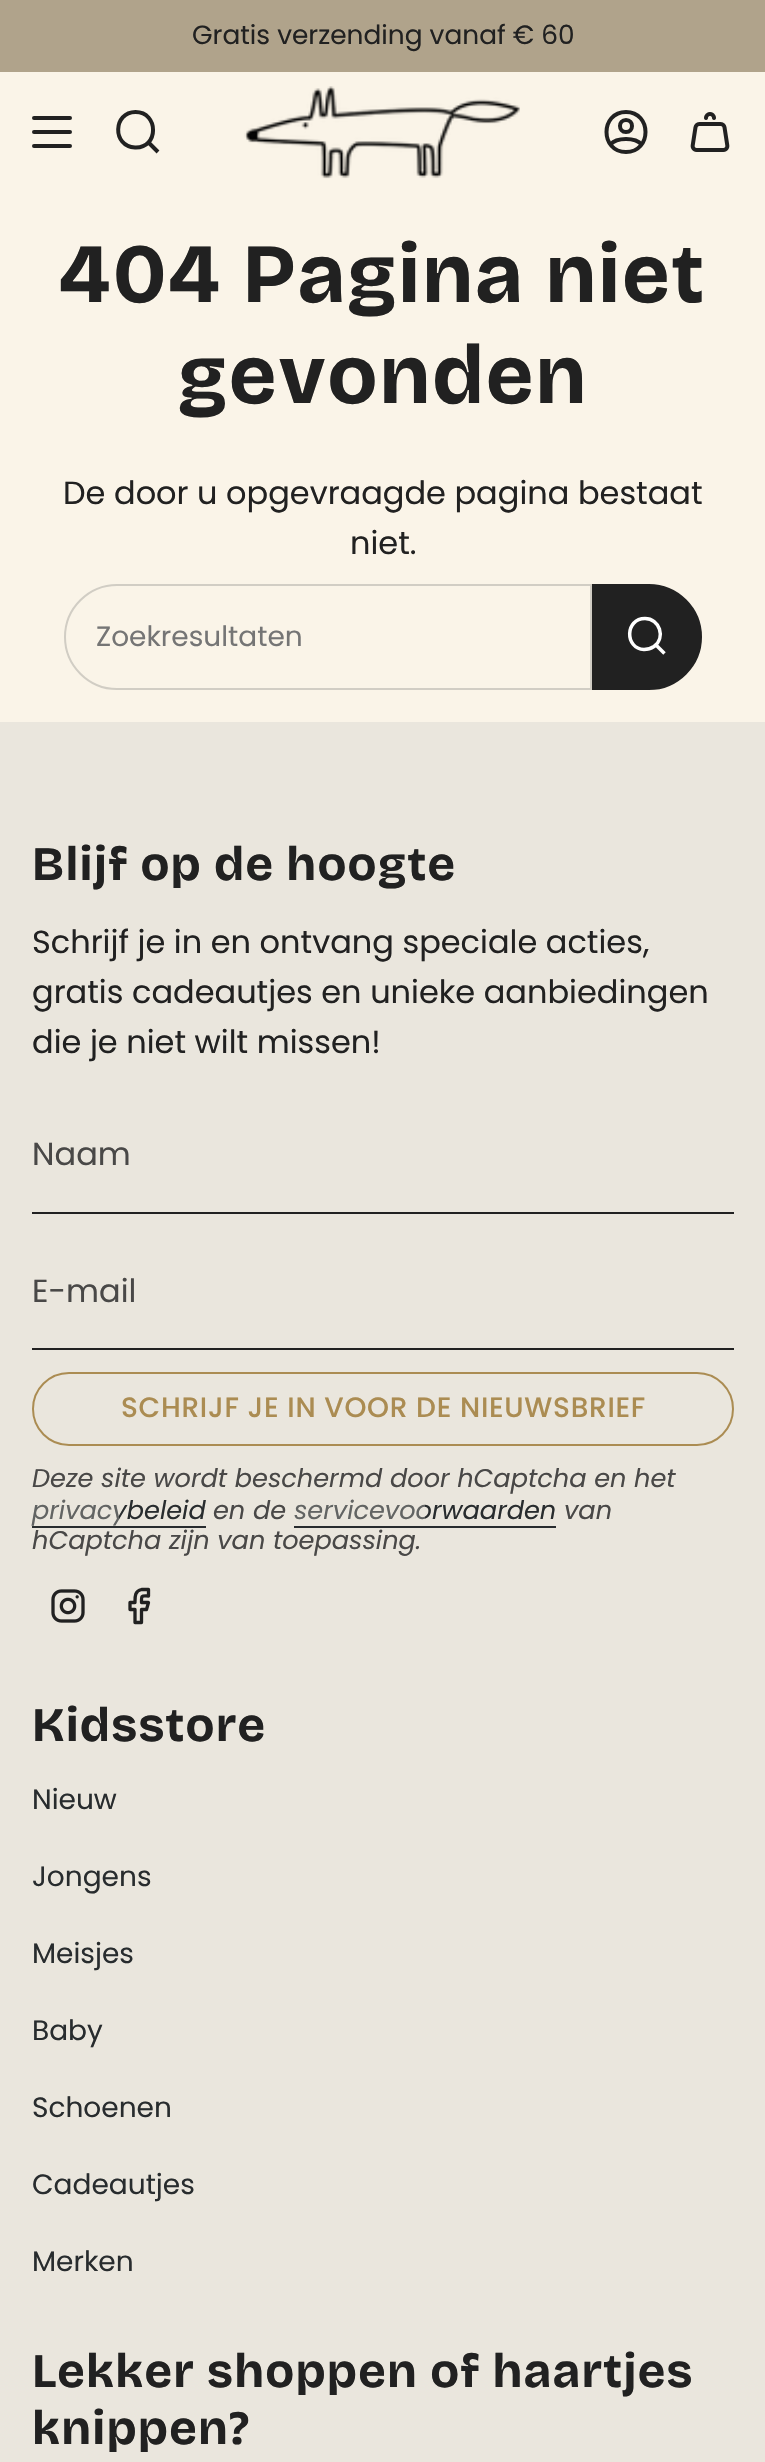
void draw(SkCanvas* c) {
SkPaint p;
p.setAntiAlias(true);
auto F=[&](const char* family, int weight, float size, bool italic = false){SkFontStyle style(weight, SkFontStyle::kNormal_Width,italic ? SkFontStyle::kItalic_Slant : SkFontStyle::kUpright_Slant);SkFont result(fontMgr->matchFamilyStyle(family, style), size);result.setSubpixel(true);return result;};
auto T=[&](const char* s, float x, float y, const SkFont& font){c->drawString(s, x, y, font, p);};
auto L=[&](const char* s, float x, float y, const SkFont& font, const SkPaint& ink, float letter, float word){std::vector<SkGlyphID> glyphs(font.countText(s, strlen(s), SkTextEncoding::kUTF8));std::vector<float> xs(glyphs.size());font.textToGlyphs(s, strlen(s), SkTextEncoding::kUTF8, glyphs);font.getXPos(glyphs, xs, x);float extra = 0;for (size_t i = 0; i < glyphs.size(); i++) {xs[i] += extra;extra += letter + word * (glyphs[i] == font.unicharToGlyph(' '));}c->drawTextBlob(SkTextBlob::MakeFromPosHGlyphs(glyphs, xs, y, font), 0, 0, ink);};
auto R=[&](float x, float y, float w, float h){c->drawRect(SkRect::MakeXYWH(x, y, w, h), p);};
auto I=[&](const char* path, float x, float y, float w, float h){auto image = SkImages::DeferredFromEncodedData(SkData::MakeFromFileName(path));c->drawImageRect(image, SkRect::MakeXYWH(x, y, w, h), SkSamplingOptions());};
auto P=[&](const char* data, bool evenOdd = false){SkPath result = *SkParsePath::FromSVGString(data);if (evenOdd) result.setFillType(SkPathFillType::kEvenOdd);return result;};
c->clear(0xfffaf4e8);
p.setColor(0xffb0a38b);
R(0,0,765,72);
auto f1 = F("Poppins",400,26.4);
p.setColor(0xff212121);
T("Gratis verzending vanaf € 60",192,44,f1);
p.setStroke(true);
p.setStrokeWidth(4);
p.setStrokeCap(SkPaint::kRound_Cap);
p.setStrokeJoin(SkPaint::kRound_Join);
c->drawPath(P("M34 118h36m-36 14h36m-36 14h36"),p);
p.setStrokeCap(SkPaint::kButt_Cap);
p.setStrokeJoin(SkPaint::kMiter_Join);
c->drawPath(P("M135.5 112c23.5 0 23.5 36.5-.5 35.5c-23-1-22-35.5 .5-35.5zm12.5 30l10 10"),p);
I("1.png",244,86,276,93);
p.setStrokeCap(SkPaint::kRound_Cap);
p.setStrokeJoin(SkPaint::kRound_Join);
c->drawPath(P("M626 112c-26 0-26 40 0 40c26 0 26-40 0-40zm-15.5 32.5c6-7.5 25-7.5 31 0m-15.5-12.5c8 0 8-12 0-12c-8 0-8 12 0 12z"),p);
I("2.png",690,112,40,40);
auto f2 = F("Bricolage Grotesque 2",700,84);
p.setStroke(false);
L("404 Pagina niet",59,302,f2,p,2.1,0);
L("gevonden",178,403,f2,p,2.1,0);
auto f3 = F("Poppins",400,32);
T("De door u opgevraagde pagina bestaat",63,504,f3);
T("niet.",350,554,f3);
p.setStroke(true);
p.setStrokeWidth(2);
p.setStrokeCap(SkPaint::kButt_Cap);
p.setStrokeJoin(SkPaint::kMiter_Join);
p.setColor(0xffd1cdc4);
c->drawPath(P("M117 585h474v104h-474c-28.5 0-52-23.5-52-52c0-28.5 23.5-52 52-52z"),p);
auto f4 = F("Poppins",400,28);
p.setStroke(false);
p.setColor(0xff757575);
T("Zoekresultaten",96,646,f4);
p.setColor(0xff212121);
c->drawPath(P("M593 585h56c28.5 0 52 23.5 52 52c0 28.5-23.5 52-52 52h-56z"),p);
p.setStroke(true);
c->drawPath(P("M593 585h56c28.5 0 52 23.5 52 52c0 28.5-23.5 52-52 52h-56z"),p);
p.setStrokeWidth(3.5);
p.setColor(0xffffffff);
c->drawPath(P("M645 618.5c14.5 0 21 19 9 28c-3 2-6.5 3-10 3c-19.5-1-19-31 1-31zm11 26.5l8.5 8.5"),p);
p.setStroke(false);
p.setColor(0xffeae6dd);
R(0,722,765,1740);
auto f5 = F("Bricolage Grotesque",700,48);
p.setColor(0xff212121);
L("Blijf op de hoogte",32,880,f5,p,1.2,0);
T("Schrijf je in en ontvang speciale acties,",32,953,f3);
T("gratis cadeautjes en unieke aanbiedingen",32,1003,f3);
T("die je niet wilt missen!",32,1053,f3);
R(32,1212,702,2);
p.setColor(0xff494847);
T("Naam",32,1165,f3);
p.setColor(0xff212121);
R(32,1348,702,2);
p.setColor(0xff494847);
T("E-mail",32,1302,f3);
p.setStroke(true);
p.setStrokeWidth(2);
p.setColor(0xffab8c52);
c->drawRoundRect(SkRect::MakeXYWH(33,1373,700,72),36,36,p);
auto f6 = F("Poppins",500,28);
p.setStroke(false);
L("SCHRIJF JE IN VOOR DE NIEUWSBRIEF",121,1417,f6,p,.7,0);
auto f7 = F("Poppins",400,25.6,true);
p.setColor(0xff494847);
T("Deze site wordt beschermd door hCaptcha en het",32,1487,f7);
{
const SkColor colors[] = {0xff626463,0xff626463,0xff282c2e,0xff282c2e};
const float stops[] = {0,.5,.5,1};
const SkPoint ends[] = {{32,1511}, {206,1511}};
p.setShader(SkGradientShader::MakeLinear(ends, colors, stops, 4, SkTileMode::kClamp));
p.setAlpha(255);
}
T("privacybeleid",32,1519,f7);
p.setShader(nullptr);
p.setColor(0xff282c2e);
R(32,1526,174,2);
p.setColor(0xff494847);
T("en de",213,1519,f7);
{
const SkColor colors[] = {0xff626463,0xff626463,0xff282c2e,0xff282c2e};
const float stops[] = {0,.5,.5,1};
const SkPoint ends[] = {{294,1511}, {556,1511}};
p.setShader(SkGradientShader::MakeLinear(ends, colors, stops, 4, SkTileMode::kClamp));
p.setAlpha(255);
}
T("servicevoorwaarden",294,1519,f7);
p.setShader(nullptr);
p.setColor(0xff282c2e);
R(294,1526,262,2);
p.setColor(0xff494847);
T("van",564,1519,f7);
T("hCaptcha zijn van toepassing.",32,1549,f7);
I("3.png",51,1589,34,34);
p.setStroke(true);
p.setStrokeWidth(3.3);
p.setStrokeCap(SkPaint::kRound_Cap);
p.setStrokeJoin(SkPaint::kRound_Join);
p.setColor(0xff212121);
c->drawPath(P("M148.5 1589.5h-7c-7 1.5-6.5 7.5-6.5 13h-5v7h5v13h6.5v-13h5l2-7h-7c0-7.5-.5-6.5 7-6.5z"),p);
p.setStroke(false);
L("Kidsstore",32,1741,f5,p,1.2,0);
p.setColor(0xff282c2e);
T("Nieuw",32,1809,f4);
T("Jongens",32,1886,f4);
T("Meisjes",32,1963,f4);
T("Baby",32,2040,f4);
T("Schoenen",32,2117,f4);
T("Cadeautjes",32,2194,f4);
T("Merken",32,2271,f4);
p.setColor(0xff212121);
L("Lekker shoppen of haartjes",32,2387,f5,p,1.2,0);
L("knippen?",32,2444,f5,p,1.2,0);
}
